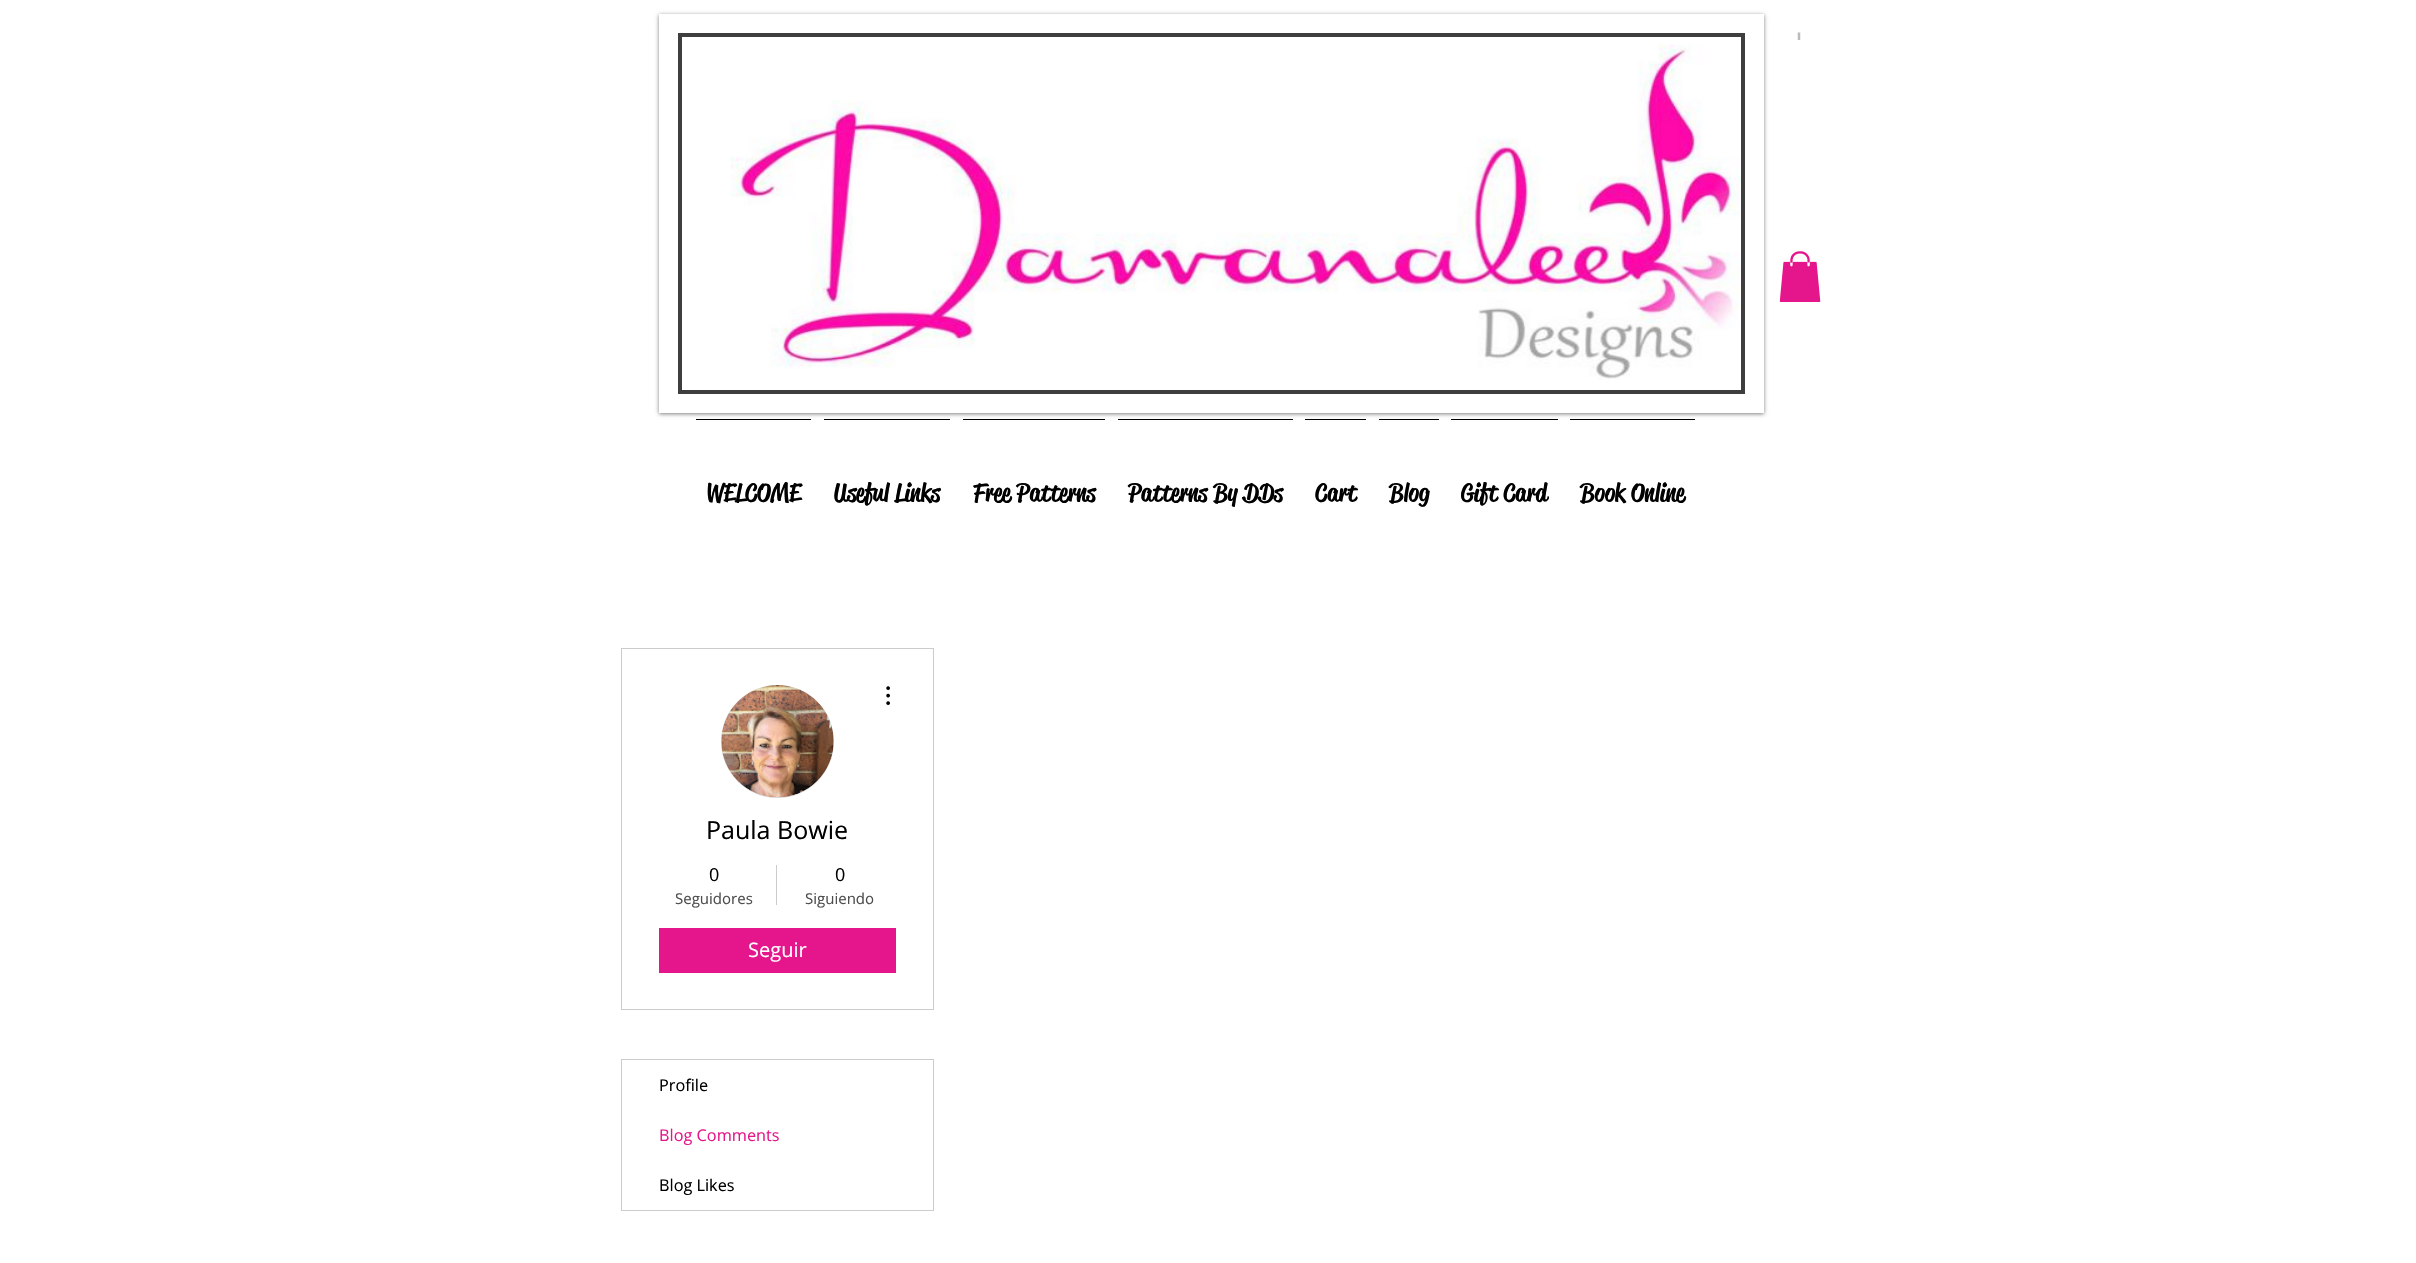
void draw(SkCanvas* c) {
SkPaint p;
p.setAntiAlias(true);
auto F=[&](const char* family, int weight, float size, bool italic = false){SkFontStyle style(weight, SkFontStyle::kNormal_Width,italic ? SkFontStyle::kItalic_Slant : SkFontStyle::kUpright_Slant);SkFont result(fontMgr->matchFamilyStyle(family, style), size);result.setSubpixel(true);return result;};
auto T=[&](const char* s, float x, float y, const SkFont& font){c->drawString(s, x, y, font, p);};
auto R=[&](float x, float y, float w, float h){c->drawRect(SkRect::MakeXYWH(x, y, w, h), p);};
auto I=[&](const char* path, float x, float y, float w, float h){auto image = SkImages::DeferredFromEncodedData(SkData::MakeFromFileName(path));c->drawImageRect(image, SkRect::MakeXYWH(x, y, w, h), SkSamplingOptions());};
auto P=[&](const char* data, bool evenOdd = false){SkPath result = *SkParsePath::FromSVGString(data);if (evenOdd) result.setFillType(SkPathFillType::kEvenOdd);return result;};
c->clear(0xffffffff);
p.setColor(0x80000000);
p.setMaskFilter(SkMaskFilter::MakeBlur(kNormal_SkBlurStyle, 2));
c->drawRect(SkRect::MakeXYWH(659,15,1105,399),p);
p.setMaskFilter(nullptr);
p.setColor(0xffffffff);
R(659,14,1105,399);
I("1.png",730,44,1011,336);
p.setStroke(true);
p.setStrokeWidth(4);
p.setColor(0xff3e3e3e);
c->drawRect(SkRect::MakeXYWH(680,35,1063,357),p);
p.setStrokeWidth(2.5);
p.setColor(0xffbbbbbb);
c->drawPath(P("M1799 32.5v7.5"),p);
I("2.png",1779,251,42,51);
p.setStroke(false);
p.setColor(0xff000000);
R(696,419,115,1);
auto f1 = F("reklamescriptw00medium",500,25);
T("WELCOME",706,501,f1);
R(824,419,126,1);
T("Useful Links",834,501,f1);
R(963,419,142,1);
T("Free Patterns",973,501,f1);
R(1118,419,175,1);
T("Patterns By DDs",1128,501,f1);
R(1305,419,61,1);
T("Cart",1315,501,f1);
R(1379,419,60,1);
T("Blog",1389,501,f1);
R(1451,419,107,1);
T("Gift Card",1461,501,f1);
R(1570,419,125,1);
T("Book Online",1580,501,f1);
p.setStroke(true);
p.setStrokeWidth(1);
p.setColor(0xffcccccc);
c->drawRect(SkRect::MakeXYWH(621.5,648.5,312,361),p);
p.setStroke(false);
p.setColor(0xffd8d8d8);
c->drawCircle(777.5,741.5,56.5,p);
I("3.png",721,685,113,113);
I("4.png",886,686,4,19);
auto f2 = F("Open Sans",400,25);
p.setColor(0xff000000);
T("Paula Bowie",706,839,f2);
auto f3 = F("Open Sans",400,18);
T("0",709,881,f3);
auto f4 = F("Open Sans",400,15);
p.setColor(0xff4d4d4d);
T("Seguidores",675,904,f4);
p.setColor(0xffcccccc);
R(776,865,1,40);
p.setColor(0xff000000);
T("0",835,881,f3);
p.setColor(0xff4d4d4d);
T("Siguiendo",805,904,f4);
p.setColor(0xffe5168b);
R(659,928,237,45);
auto f5 = F("Open Sans",400,20);
p.setColor(0xffffffff);
T("Seguir",748,957,f5);
p.setStroke(true);
p.setColor(0xffcccccc);
c->drawRect(SkRect::MakeXYWH(621.5,1059.5,312,151),p);
auto f6 = F("Open Sans",400,16.25);
p.setStroke(false);
p.setColor(0xff000000);
T("Profile",659,1091,f6);
p.setColor(0xffe5168b);
T("Blog Comments",659,1141,f6);
p.setColor(0xff000000);
T("Blog Likes",659,1191,f6);
}
